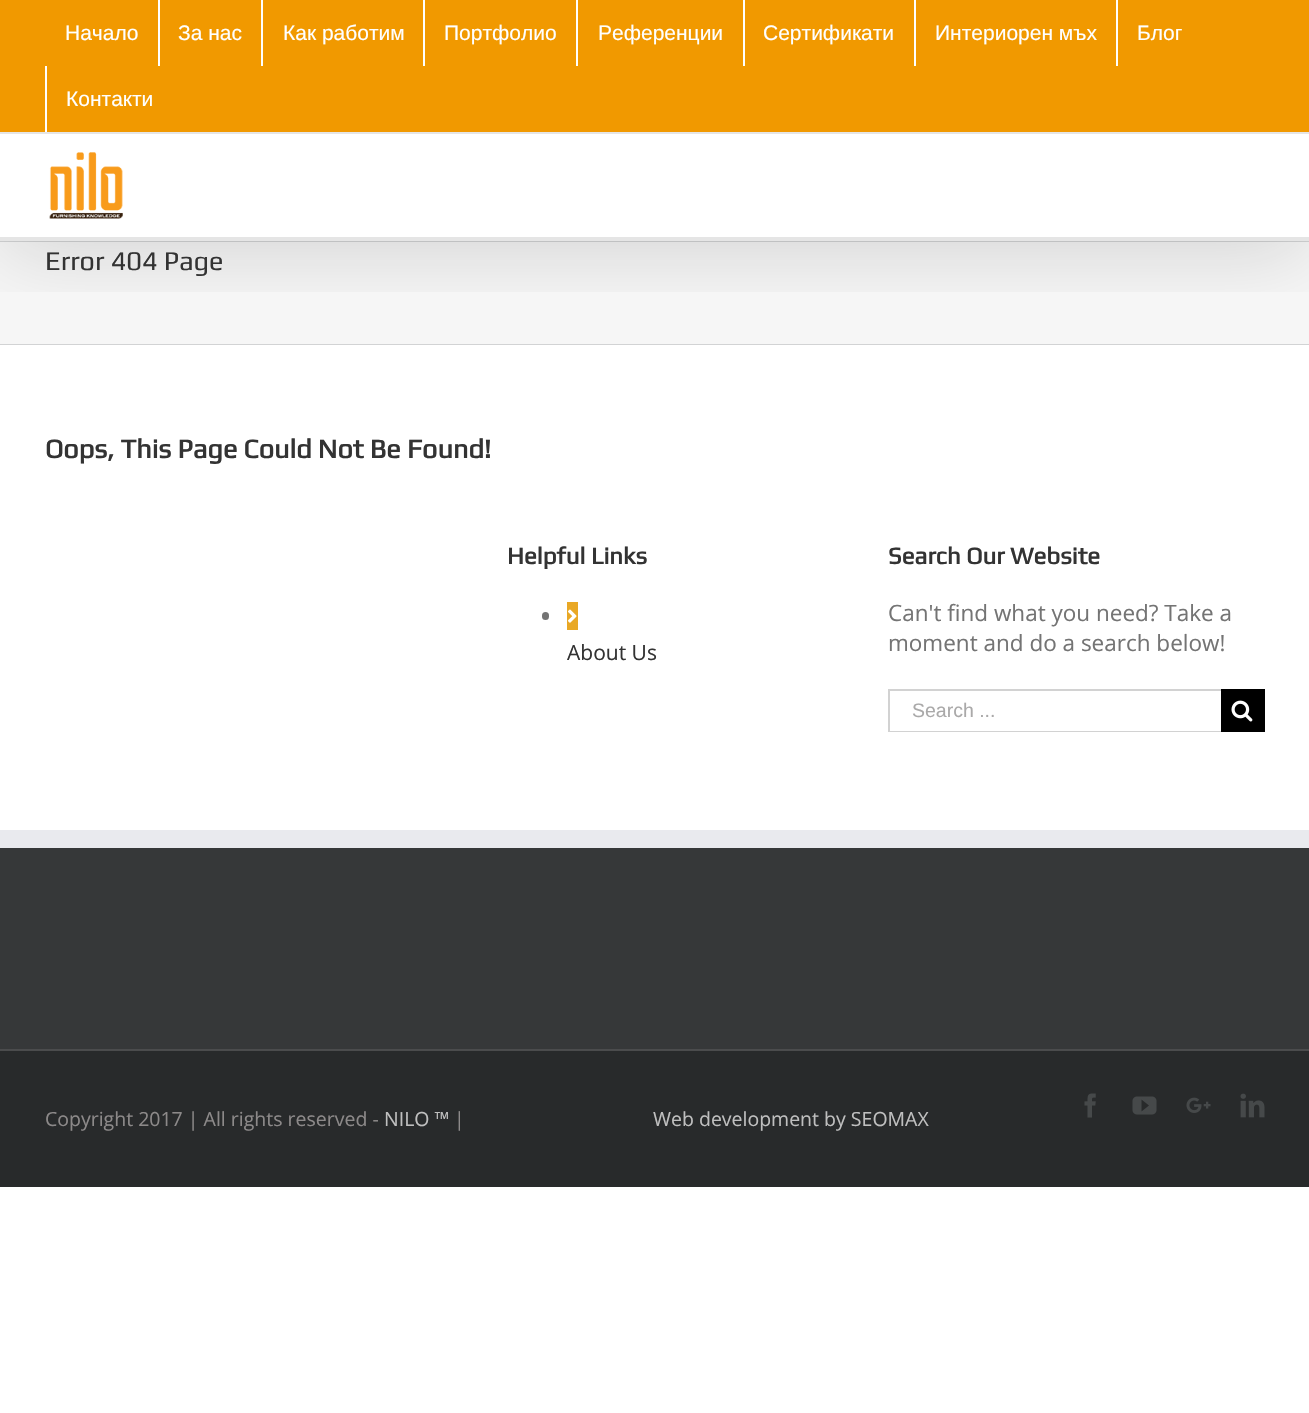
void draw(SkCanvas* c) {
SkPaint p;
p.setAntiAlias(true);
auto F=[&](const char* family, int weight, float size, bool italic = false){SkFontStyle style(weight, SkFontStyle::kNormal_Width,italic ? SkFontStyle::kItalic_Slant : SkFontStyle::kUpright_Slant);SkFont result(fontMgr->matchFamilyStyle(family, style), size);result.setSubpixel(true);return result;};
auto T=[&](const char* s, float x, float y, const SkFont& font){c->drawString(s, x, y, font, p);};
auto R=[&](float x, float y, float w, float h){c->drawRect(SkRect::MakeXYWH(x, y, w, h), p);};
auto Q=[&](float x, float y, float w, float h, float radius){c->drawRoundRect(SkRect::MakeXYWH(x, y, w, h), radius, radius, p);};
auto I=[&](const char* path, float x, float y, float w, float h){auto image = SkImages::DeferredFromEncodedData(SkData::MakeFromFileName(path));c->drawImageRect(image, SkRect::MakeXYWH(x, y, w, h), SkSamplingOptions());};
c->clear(0xffffffff);
p.setColor(0xfff6f6f6);
R(0,242,1309,102);
p.setColor(0xffd2d3d4);
R(0,241,1309,1);
R(0,344,1309,1);
c->save();
c->clipRect(SkRect::MakeXYWH(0,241,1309,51));
p.setColor(0x24000000);
p.setMaskFilter(SkMaskFilter::MakeBlur(kNormal_SkBlurStyle, 37.5));
c->drawRect(SkRect::MakeXYWH(3,18,1304,234),p);
p.setMaskFilter(nullptr);
c->restore();
p.setColor(0xfff19900);
R(0,0,1309,132);
p.setColor(0xffe5e5e5);
R(0,132,1309,2);
auto f1 = F("Liberation Sans",400,21);
p.setColor(0xffffffff);
T("Начало",65,40,f1);
R(158,0,2,66);
T("За нас",178,40,f1);
R(261,0,2,66);
T("Как работим",283,40,f1);
R(423,0,2,66);
T("Портфолио",444,40,f1);
R(576,0,2,66);
T("Референции",598,40,f1);
R(743,0,2,66);
T("Сертификати",763,40,f1);
R(914,0,2,66);
T("Интериорен мъх",935,40,f1);
R(1116,0,2,66);
T("Блог",1137,40,f1);
R(45,66,2,66);
T("Контакти",66,106,f1);
I("1.png",49,152,74,67);
p.setColor(0xffe5e5e5);
R(0,237,1309,4);
auto f2 = F("Play",400,27);
p.setColor(0xff333333);
T("Error 404 Page",45,270,f2);
auto f3 = F("Play",700,27);
T("Oops, This Page Could Not Be Found!",45,458,f3);
auto f4 = F("Play",700,24);
T("Helpful Links",507,564,f4);
p.setColor(0xff747474);
Q(542,612,7,8,3.5);
p.setColor(0xffe9a825);
R(567,602,11,28);
I("2.png",568,609,9,14);
auto f5 = F("Open Sans",400,21);
p.setColor(0xff333333);
T("About Us",567,660,f5);
T("Search Our Website",888,564,f4);
auto f6 = F("Open Sans",400,22.5);
p.setColor(0xff747474);
T("Can't find what you need? Take a",888,621,f6);
T("moment and do a search below!",888,651,f6);
p.setColor(0xffd2d2d2);
R(888,689,333,2);
R(888,731,333,1);
R(888,689,2,43);
auto f7 = F("Liberation Sans",400,19.5);
p.setColor(0xffaaa9a9);
T("Search ...",912,717,f7);
p.setColor(0xff000000);
R(1221,689,44,43);
I("3.png",1231,700,22,22);
p.setColor(0xff363839);
R(0,848,1309,201);
p.setColor(0xffe9eaee);
R(0,830,1309,18);
p.setColor(0xff282a2b);
R(0,1051,1309,136);
p.setColor(0xff4b4c4d);
R(0,1049,1309,2);
I("4.png",1084,1093,12,25);
I("5.png",1132,1096,25,19);
I("6.png",1186,1097,25,16);
I("7.png",1240,1093,25,25);
auto f8 = F("Open Sans",400,19.5);
p.setColor(0xff8c8989);
T("Copyright 2017 | All rights reserved -",45,1126,f8);
p.setColor(0xffbfbfbf);
T("NILO ™",384,1126,f8);
p.setColor(0xff8c8989);
T("|",454,1126,f8);
p.setColor(0xffbfbfbf);
T("Web development by SEOMAX",653,1126,f8);
}
